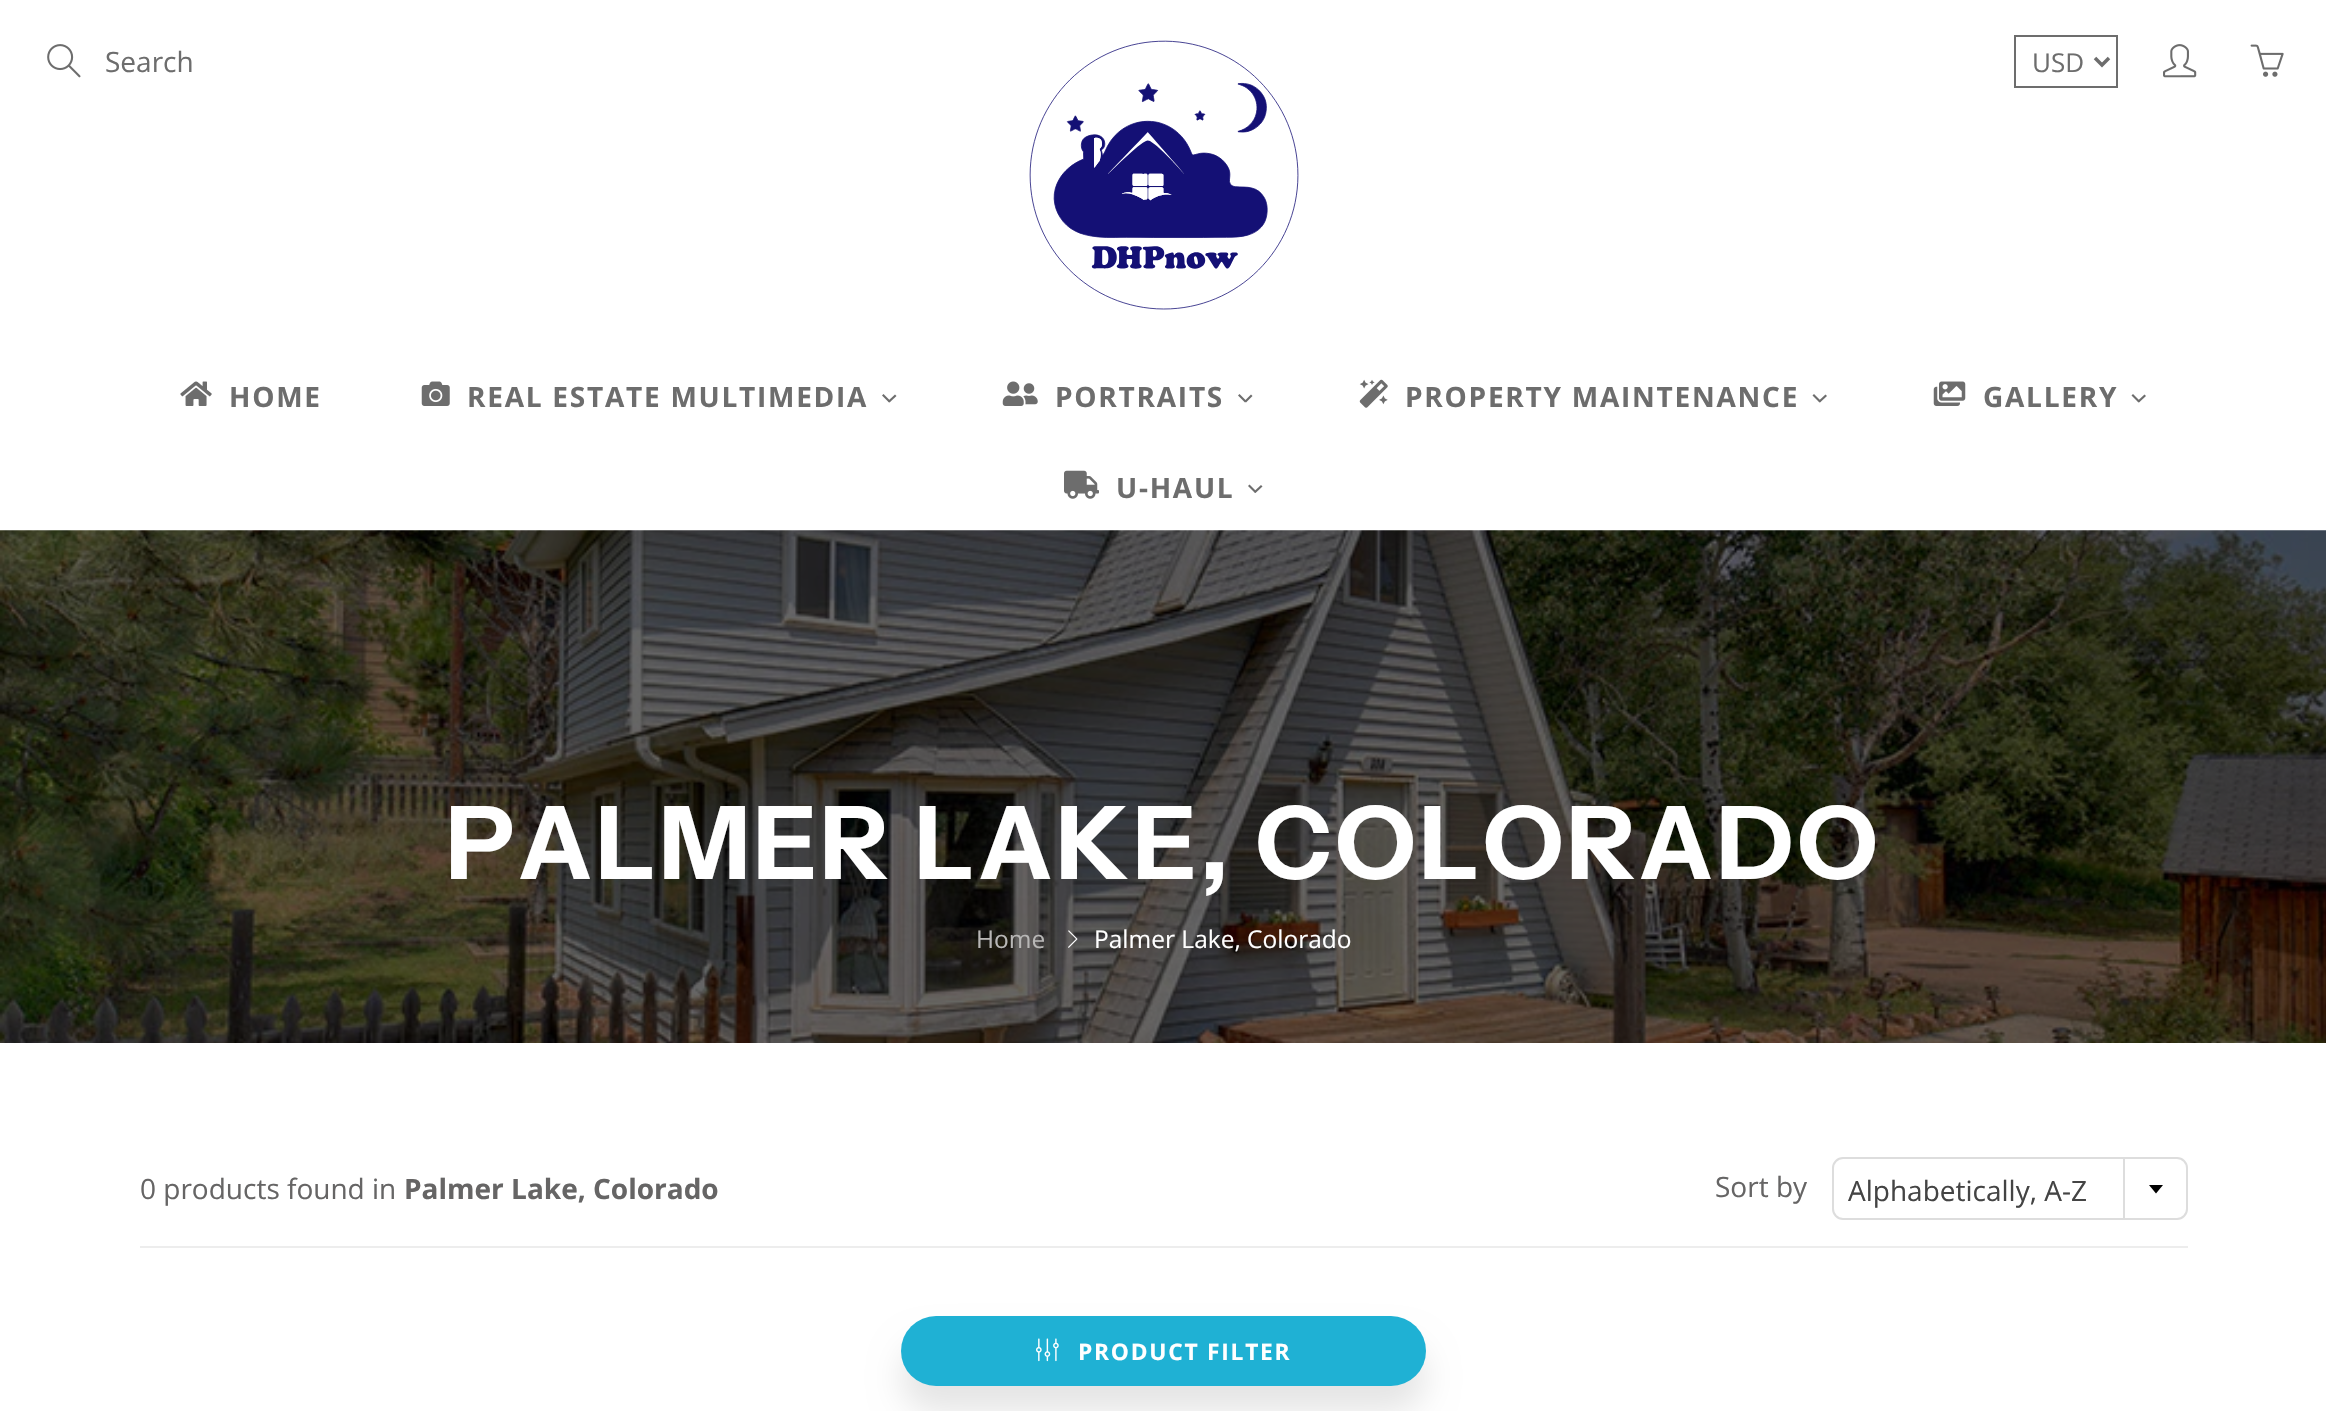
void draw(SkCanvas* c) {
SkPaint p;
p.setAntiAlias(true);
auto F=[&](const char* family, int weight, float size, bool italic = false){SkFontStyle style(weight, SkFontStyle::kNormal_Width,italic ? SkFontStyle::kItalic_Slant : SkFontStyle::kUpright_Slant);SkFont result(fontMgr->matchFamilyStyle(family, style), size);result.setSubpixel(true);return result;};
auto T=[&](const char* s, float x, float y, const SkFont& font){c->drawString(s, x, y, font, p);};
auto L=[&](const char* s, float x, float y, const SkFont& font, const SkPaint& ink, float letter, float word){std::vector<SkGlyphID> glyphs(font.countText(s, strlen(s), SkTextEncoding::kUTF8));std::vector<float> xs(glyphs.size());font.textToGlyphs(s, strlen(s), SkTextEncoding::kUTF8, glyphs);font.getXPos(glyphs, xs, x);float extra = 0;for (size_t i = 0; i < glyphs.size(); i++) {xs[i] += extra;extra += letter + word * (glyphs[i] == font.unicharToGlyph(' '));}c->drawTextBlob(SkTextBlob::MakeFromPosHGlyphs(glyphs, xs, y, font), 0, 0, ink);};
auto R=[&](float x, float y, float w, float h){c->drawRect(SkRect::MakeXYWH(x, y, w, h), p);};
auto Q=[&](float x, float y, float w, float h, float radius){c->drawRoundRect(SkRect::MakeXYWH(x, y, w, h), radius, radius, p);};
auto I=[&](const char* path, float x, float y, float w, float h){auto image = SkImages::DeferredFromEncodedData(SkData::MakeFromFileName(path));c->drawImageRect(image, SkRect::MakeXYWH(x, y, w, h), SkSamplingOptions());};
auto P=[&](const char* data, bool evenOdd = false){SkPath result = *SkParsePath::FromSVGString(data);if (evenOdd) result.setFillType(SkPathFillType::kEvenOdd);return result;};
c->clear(0xffffffff);
I("1.png",47,44,34,34);
auto f1 = F("Open Sans",400,28);
p.setColor(0xff6d6d6d);
T("Search",105,72,f1);
I("2.png",1029,40,270,270);
p.setStroke(true);
p.setStrokeWidth(2);
c->drawRect(SkRect::MakeXYWH(2015,36,102,51),p);
p.setStrokeWidth(3.5);
c->drawPath(P("M2095 58l7 7l7-7"),p);
auto f2 = F("Open Sans",400,26);
p.setStroke(false);
T("USD",2032,72,f2);
I("3.png",2163,44,34,34);
I("4.png",2250,44,34,33);
I("5.png",180,381,32,25);
auto f3 = F("Open Sans",700,28);
L("HOME",229,407,f3,p,1.75,0);
I("6.png",421,381,29,25);
L("REAL ESTATE MULTIMEDIA",467,407,f3,p,1.75,0);
c->drawPath(P("M895 394.5l1.5 1.5l-7 6.5l-1.5-1.5z"),p);
c->drawPath(P("M883.5 394l7 7l-1.5 1.5l-7-7z"),p);
I("7.png",1002,381,36,25);
L("PORTRAITS",1055,407,f3,p,1.75,0);
c->drawPath(P("M1251 394.5l1.5 1.5l-6.5 6.5l-1.5-1.5z"),p);
c->drawPath(P("M1239.5 394l7 7l-1.5 1.5l-7-7z"),p);
I("8.png",1359,379,29,29);
L("PROPERTY MAINTENANCE",1405,407,f3,p,1.75,0);
c->drawPath(P("M1825.5 394.5l1.5 1.5l-7 6.5l-1.5-1.5z"),p);
c->drawPath(P("M1814 394l7 7l-1.5 1.5l-7-7z"),p);
I("9.png",1933,381,33,25);
L("GALLERY",1983,407,f3,p,1.75,0);
c->drawPath(P("M2144.5 394.5l1.5 1.5l-7 6.5l-1.5-1.5z"),p);
c->drawPath(P("M2133 394l7 7l-1.5 1.5l-7-7z"),p);
I("10.png",1064,470,35,29);
L("U-HAUL",1116,498,f3,p,1.75,0);
c->drawPath(P("M1261 485l1.5 1.5l-7 6.5l-1.5-1.5z"),p);
c->drawPath(P("M1249.5 484.5l7 7l-1.5 1.5l-7-7z"),p);
I("11.png",0,530,2326,513);
auto f4 = F("Instrument Sans",700,101.5);
p.setColor(0xffffffff);
L("PALMER LAKE, COLORADO",446,879,f4,p,3.5,0);
auto f5 = F("Open Sans",400,24.5);
p.setColor(0xffb8b7b6);
T("Home",976,948,f5);
I("12.png",1068,930,10,18);
p.setColor(0xffffffff);
T("Palmer Lake, Colorado",1094,948,f5);
p.setColor(0xffededed);
R(140,1246,2048,2);
p.setColor(0xff666565);
T("0 products found in",140,1199,f1);
T("Palmer Lake, Colorado",404,1199,f3);
T("Sort by",1715,1197,f1);
p.setStroke(true);
p.setStrokeWidth(2);
p.setColor(0xffdddddd);
c->drawRoundRect(SkRect::MakeXYWH(1833,1158,354,61),10,10,p);
p.setStroke(false);
p.setColor(0xff444444);
T("Alphabetically, A-Z",1848,1201,f1);
p.setColor(0xffdddddd);
R(2123,1159,2,59);
p.setColor(0xff000000);
c->drawPath(P("M2149 1185h14l-7 8.5z"),p);
p.setColor(0x1a000000);
p.setMaskFilter(SkMaskFilter::MakeBlur(kNormal_SkBlurStyle, 16));
c->drawRoundRect(SkRect::MakeXYWH(901,1342,525,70),35,35,p);
p.setMaskFilter(nullptr);
p.setColor(0xff1fb1d4);
Q(901,1316,525,70,35);
I("13.png",1036,1338,23,24);
auto f6 = F("Open Sans",700,22.75);
p.setColor(0xffffffff);
L("PRODUCT FILTER",1078,1360,f6,p,1.75,0);
}
